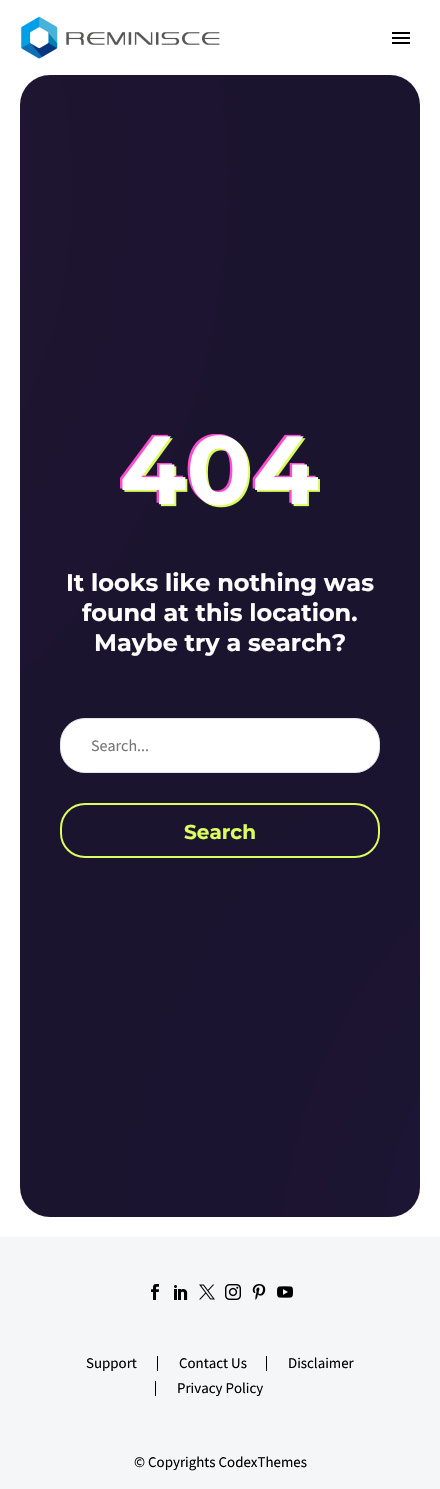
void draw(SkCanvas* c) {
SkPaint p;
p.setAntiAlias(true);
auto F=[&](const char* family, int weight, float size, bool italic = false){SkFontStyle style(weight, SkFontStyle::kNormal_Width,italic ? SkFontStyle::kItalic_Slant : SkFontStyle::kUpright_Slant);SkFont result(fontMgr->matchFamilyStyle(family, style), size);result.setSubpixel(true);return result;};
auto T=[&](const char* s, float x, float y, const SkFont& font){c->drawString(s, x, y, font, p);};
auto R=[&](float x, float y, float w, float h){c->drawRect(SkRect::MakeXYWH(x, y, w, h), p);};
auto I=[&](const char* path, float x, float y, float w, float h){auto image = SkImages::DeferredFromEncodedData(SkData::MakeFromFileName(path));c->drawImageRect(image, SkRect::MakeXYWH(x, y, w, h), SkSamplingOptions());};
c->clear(0xffffffff);
I("1.png",21,17,199,42);
p.setColor(0xff000000);
R(392,32,18,2);
R(392,37,18,2);
R(392,42,18,2);
I("2.png",20,75,400,1142);
I("3.png",120,434,200,74);
auto f1 = F("Montserrat",700,24);
p.setColor(0xffffffff);
T("It looks like nothing was",66,591,f1);
T("found at this location.",82,621,f1);
T("Maybe try a search?",94,651,f1);
c->drawRoundRect(SkRect::MakeXYWH(60.5,718.5,319,54),24.5,24.5,p);
p.setStroke(true);
p.setStrokeWidth(1);
p.setColor(0xffdfe5e8);
c->drawRoundRect(SkRect::MakeXYWH(60.5,718.5,319,54),24.5,24.5,p);
auto f2 = F("Source Sans Pro",400,16);
p.setStroke(false);
p.setColor(0xff757575);
T("Search...",91,751,f2);
p.setStroke(true);
p.setStrokeWidth(2);
p.setColor(0xffdbfd5d);
c->drawRoundRect(SkRect::MakeXYWH(61,804,318,53),24,24,p);
auto f3 = F("Montserrat",700,20);
p.setStroke(false);
T("Search",184,839,f3);
p.setColor(0xfff4f6f7);
R(0,1237,440,252);
I("4.png",151,1284,8,16);
I("5.png",174,1285,14,15);
I("6.png",199,1284,16,16);
I("7.png",225,1284,16,16);
I("8.png",252,1284,14,16);
I("9.png",277,1286,16,12);
auto f4 = F("Source Sans Pro",400,14.9);
p.setColor(0xff000000);
T("Support",86,1368,f4);
R(157,1356,1,15);
T("Contact Us",179,1368,f4);
R(266,1356,1,15);
T("Disclaimer",288,1368,f4);
R(155,1381,1,15);
T("Privacy Policy",177,1393,f4);
T("© Copyrights CodexThemes",134,1467,f4);
}
